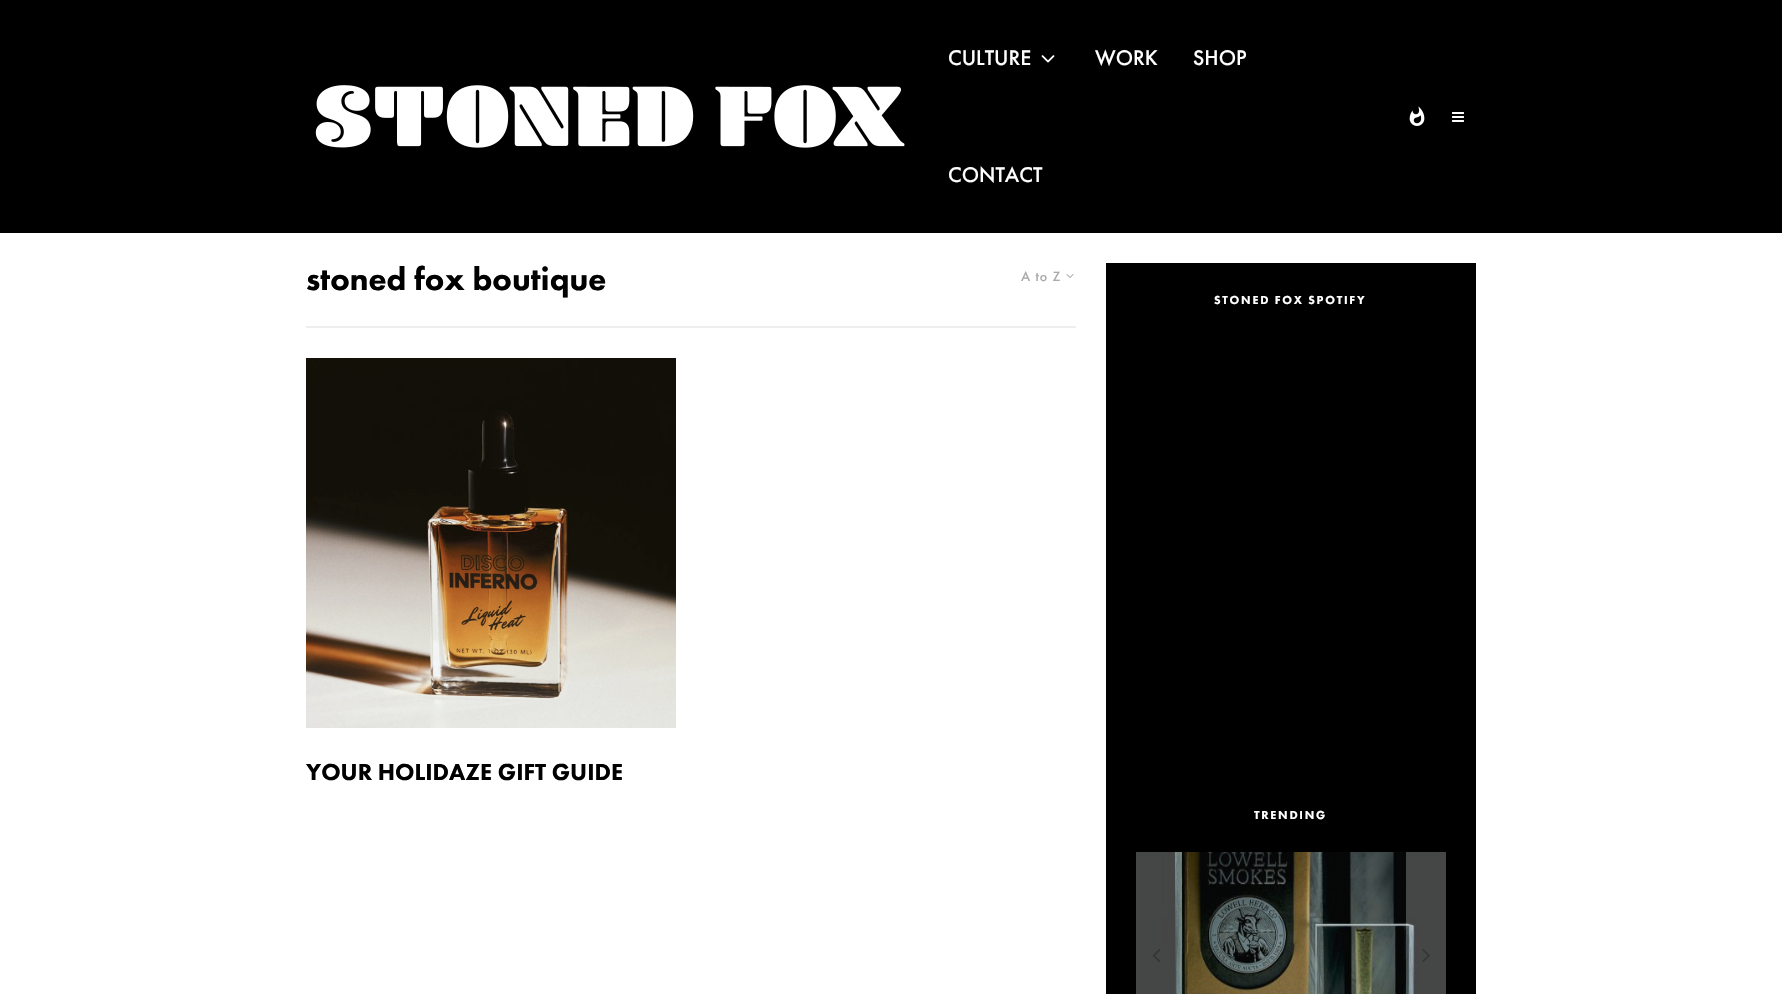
void draw(SkCanvas* c) {
SkPaint p;
p.setAntiAlias(true);
auto F=[&](const char* family, int weight, float size, bool italic = false){SkFontStyle style(weight, SkFontStyle::kNormal_Width,italic ? SkFontStyle::kItalic_Slant : SkFontStyle::kUpright_Slant);SkFont result(fontMgr->matchFamilyStyle(family, style), size);result.setSubpixel(true);return result;};
auto T=[&](const char* s, float x, float y, const SkFont& font){c->drawString(s, x, y, font, p);};
auto L=[&](const char* s, float x, float y, const SkFont& font, const SkPaint& ink, float letter, float word){std::vector<SkGlyphID> glyphs(font.countText(s, strlen(s), SkTextEncoding::kUTF8));std::vector<float> xs(glyphs.size());font.textToGlyphs(s, strlen(s), SkTextEncoding::kUTF8, glyphs);font.getXPos(glyphs, xs, x);float extra = 0;for (size_t i = 0; i < glyphs.size(); i++) {xs[i] += extra;extra += letter + word * (glyphs[i] == font.unicharToGlyph(' '));}c->drawTextBlob(SkTextBlob::MakeFromPosHGlyphs(glyphs, xs, y, font), 0, 0, ink);};
auto R=[&](float x, float y, float w, float h){c->drawRect(SkRect::MakeXYWH(x, y, w, h), p);};
auto I=[&](const char* path, float x, float y, float w, float h){auto image = SkImages::DeferredFromEncodedData(SkData::MakeFromFileName(path));c->drawImageRect(image, SkRect::MakeXYWH(x, y, w, h), SkSamplingOptions());};
c->clear(0xffffffff);
p.setColor(0xff000000);
R(0,0,1782,233);
I("1.png",315,85,590,63);
auto f1 = F("Futura PT",500,22);
p.setColor(0xffffffff);
T("CULTURE",948,65,f1);
I("2.png",1041,55,14,8);
T("WORK",1095,65,f1);
T("SHOP",1193,65,f1);
T("CONTACT",948,182,f1);
I("3.png",1409,106,16,20);
I("4.png",1452,112,12,10);
p.setColor(0xffeeeeee);
R(306,326,770,2);
auto f2 = F("Futura PT",900,33);
p.setColor(0xff000000);
T("stoned fox boutique",306,290,f2);
auto f3 = F("Futura PT",500,14);
p.setColor(0xffaaaaaa);
L("A to Z",1021,281,f3,p,1,0);
I("5.png",1066,274,8,4);
I("6.png",306,358,370,370);
auto f4 = F("Futura PT",900,24);
p.setColor(0xff000000);
T("YOUR HOLIDAZE GIFT GUIDE",306,780,f4);
R(1106,263,370,731);
auto f5 = F("Futura PT",900,12);
p.setColor(0xffffffff);
L("STONED FOX SPOTIFY",1214,304,f5,p,1.75,0);
L("TRENDING",1254,819,f5,p,1.75,0);
I("7.png",1136,852,310,142);
p.setColor(0x40ffffff);
R(1136,852,40,142);
I("8.png",1152,949,8,13);
R(1406,852,40,142);
I("9.png",1422,949,8,13);
}
